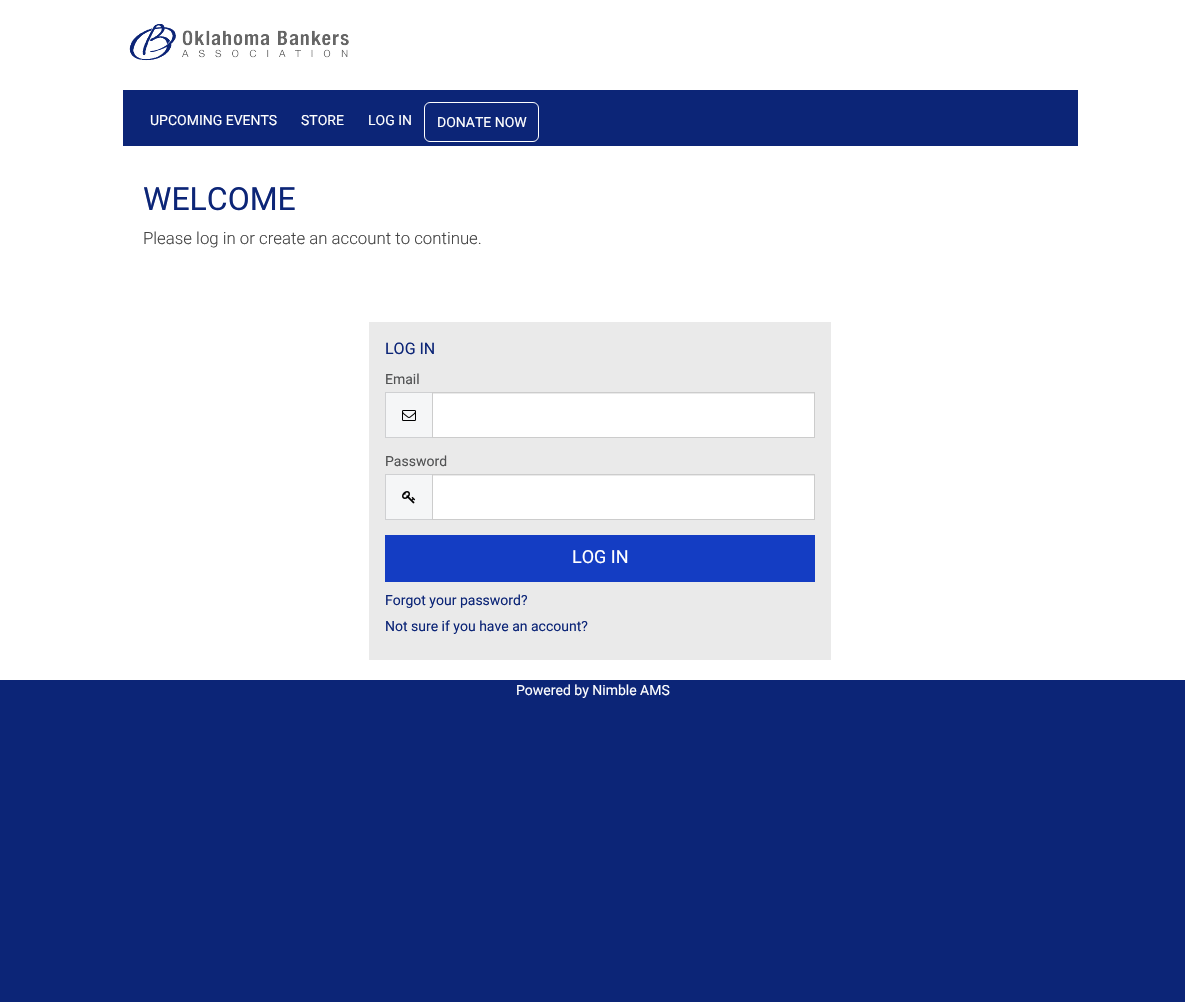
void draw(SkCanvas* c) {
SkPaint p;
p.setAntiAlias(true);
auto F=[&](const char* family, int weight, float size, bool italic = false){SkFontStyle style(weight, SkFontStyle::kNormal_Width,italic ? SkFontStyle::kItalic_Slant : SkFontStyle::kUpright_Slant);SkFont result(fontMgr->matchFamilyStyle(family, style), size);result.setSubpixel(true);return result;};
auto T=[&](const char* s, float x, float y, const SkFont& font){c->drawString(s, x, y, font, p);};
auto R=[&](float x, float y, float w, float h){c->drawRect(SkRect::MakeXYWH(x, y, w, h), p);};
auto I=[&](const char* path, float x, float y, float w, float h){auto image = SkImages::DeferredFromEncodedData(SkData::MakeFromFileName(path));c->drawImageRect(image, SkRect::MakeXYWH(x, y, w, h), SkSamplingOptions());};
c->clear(0xff0c2577);
p.setColor(0xffffffff);
R(0,0,1185,680);
I("1.png",129,24,220,37);
p.setColor(0xff0c2577);
R(123,90,955,56);
auto f1 = F("Roboto",400,14);
p.setColor(0xffffffff);
T("UPCOMING EVENTS",150,125,f1);
T("STORE",301,125,f1);
T("LOG IN",368,125,f1);
p.setStroke(true);
p.setStrokeWidth(1);
c->drawRoundRect(SkRect::MakeXYWH(424.5,102.5,114,39),5.5,5.5,p);
p.setStroke(false);
T("DONATE NOW",437,127,f1);
auto f2 = F("Roboto",400,32);
p.setColor(0xff0c2577);
T("WELCOME",143,210,f2);
auto f3 = F("Roboto",300,16.8);
p.setColor(0xff444444);
T("Please log in or create an account to continue.",143,244,f3);
p.setColor(0xffeaeaea);
R(369,322,462,338);
auto f4 = F("Roboto",400,16);
p.setColor(0xff0c2577);
T("LOG IN",385,354,f4);
p.setColor(0xff525354);
T("Email",385,384,f1);
p.setColor(0xfff5f6f7);
R(386,393,46,44);
p.setColor(0xffcfd0d2);
R(385,392,47,1);
R(385,437,47,1);
R(385,392,1,46);
I("2.png",402,410,14,11);
p.setColor(0xffffffff);
R(433,394,381,43);
p.setStroke(true);
p.setColor(0xffcccccc);
c->drawRect(SkRect::MakeXYWH(432.5,392.5,382,45),p);
p.setStroke(false);
p.setColor(0xff525354);
T("Password",385,466,f1);
p.setColor(0xfff5f6f7);
R(386,475,46,44);
p.setColor(0xffcfd0d2);
R(385,474,47,1);
R(385,519,47,1);
R(385,474,1,46);
I("3.png",402,491,14,13);
p.setColor(0xffffffff);
R(433,476,381,43);
p.setStroke(true);
p.setColor(0xffcccccc);
c->drawRect(SkRect::MakeXYWH(432.5,474.5,382,45),p);
p.setStroke(false);
p.setColor(0xff143dc3);
R(385,535,430,47);
auto f5 = F("Roboto",400,18);
p.setColor(0xffffffff);
T("LOG IN",572,563,f5);
p.setColor(0xff0c2577);
T("Forgot your password?",385,605,f1);
T("Not sure if you have an account?",385,631,f1);
p.setColor(0xffffffff);
T("Powered by Nimble AMS",516,695,f1);
}
